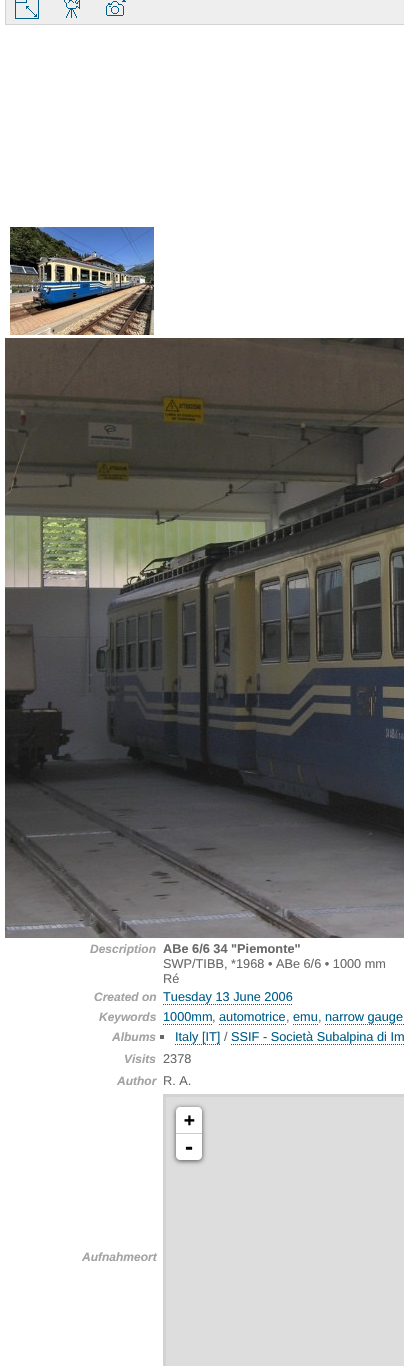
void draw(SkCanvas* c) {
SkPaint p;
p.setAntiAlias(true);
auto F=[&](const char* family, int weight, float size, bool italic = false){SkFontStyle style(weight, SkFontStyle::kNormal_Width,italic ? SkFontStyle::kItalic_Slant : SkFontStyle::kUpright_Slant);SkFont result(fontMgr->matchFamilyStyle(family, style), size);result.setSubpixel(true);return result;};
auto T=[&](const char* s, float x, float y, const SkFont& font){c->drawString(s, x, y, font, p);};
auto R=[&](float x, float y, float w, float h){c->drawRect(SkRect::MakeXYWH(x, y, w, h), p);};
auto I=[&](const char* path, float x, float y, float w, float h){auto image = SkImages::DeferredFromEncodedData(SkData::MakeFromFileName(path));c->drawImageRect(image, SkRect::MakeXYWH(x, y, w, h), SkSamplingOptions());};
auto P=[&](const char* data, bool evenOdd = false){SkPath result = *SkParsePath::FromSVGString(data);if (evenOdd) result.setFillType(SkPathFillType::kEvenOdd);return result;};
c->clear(0xffffffff);
p.setColor(0xffeeeeee);
c->drawRect(SkRect::MakeXYWH(5.5,-.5,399,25),p);
p.setStroke(true);
p.setStrokeWidth(1);
p.setColor(0xffd3d3d3);
c->drawRect(SkRect::MakeXYWH(5.5,-.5,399,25),p);
I("1.png",15,0,24,19);
I("2.png",64,0,16,18);
I("3.png",106,0,20,16);
I("4.png",10,227,144,108);
I("5.png",5,338,399,600);
auto f1 = F("Liberation Sans",700,12,true);
p.setStroke(false);
p.setColor(0xffa3a3a3);
T("Description",90,953,f1);
auto f2 = F("Liberation Sans",700,12.75);
p.setColor(0xff696969);
T("ABe 6/6 34 \"Piemonte\"",163,953,f2);
auto f3 = F("Liberation Sans",400,12.75);
T("SWP/TIBB, *1968 • ABe 6/6 • 1000 mm",163,968,f3);
T("Ré",163,983,f3);
p.setColor(0xffa3a3a3);
T("Created on",94,1001,f1);
p.setColor(0xff005e89);
T("Tuesday 13 June 2006",163,1001,f3);
p.setStroke(true);
p.setPathEffect(SkDashPathEffect::Make({{1,1}}, 0));
c->drawPath(P("M163 1004.5h130"),p);
p.setPathEffect(nullptr);
p.setStroke(false);
p.setColor(0xffa3a3a3);
T("Keywords",99,1021,f1);
p.setColor(0xff005e89);
T("1000mm",163,1021,f3);
p.setStroke(true);
p.setPathEffect(SkDashPathEffect::Make({{1,1}}, 0));
c->drawPath(P("M163 1024.5h49"),p);
p.setPathEffect(nullptr);
p.setStroke(false);
p.setColor(0xff696969);
T(",",212,1021,f3);
p.setColor(0xff005e89);
T("automotrice",219,1021,f3);
p.setStroke(true);
p.setPathEffect(SkDashPathEffect::Make({{1,1}}, 0));
c->drawPath(P("M219 1024.5h67"),p);
p.setPathEffect(nullptr);
p.setStroke(false);
p.setColor(0xff696969);
T(",",286,1021,f3);
p.setColor(0xff005e89);
T("emu",293,1021,f3);
p.setStroke(true);
p.setPathEffect(SkDashPathEffect::Make({{1,1}}, 0));
c->drawPath(P("M293 1024.5h25"),p);
p.setPathEffect(nullptr);
p.setStroke(false);
p.setColor(0xff696969);
T(",",318,1021,f3);
p.setColor(0xff005e89);
T("narrow gauge",325,1021,f3);
p.setStroke(true);
p.setPathEffect(SkDashPathEffect::Make({{1,1}}, 0));
c->drawPath(P("M325 1024.5h79"),p);
p.setPathEffect(nullptr);
p.setStroke(false);
p.setColor(0xffa3a3a3);
T("Albums",112,1041,f1);
p.setColor(0xff696969);
R(160,1035,4,4);
p.setColor(0xff005e89);
T("Italy [IT]",175,1041,f3);
p.setStroke(true);
p.setPathEffect(SkDashPathEffect::Make({{1,1}}, 0));
c->drawPath(P("M175 1044.5h46"),p);
p.setPathEffect(nullptr);
p.setStroke(false);
p.setColor(0xff696969);
T("/",224,1041,f3);
p.setColor(0xff005e89);
T("SSIF - Società Subalpina di Im",231,1041,f3);
p.setStroke(true);
p.setPathEffect(SkDashPathEffect::Make({{1,1}}, 0));
c->drawPath(P("M231 1044.5h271"),p);
p.setPathEffect(nullptr);
p.setStroke(false);
p.setColor(0xffa3a3a3);
T("Visits",124,1063,f1);
p.setColor(0xff696969);
T("2378",163,1063,f3);
p.setColor(0xffa3a3a3);
T("Author",117,1085,f1);
p.setColor(0xff696969);
T("R. A.",163,1085,f3);
p.setColor(0xffdddddd);
c->drawRect(SkRect::MakeXYWH(164.5,1095.5,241,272),p);
p.setStroke(true);
p.setStrokeWidth(3);
p.setColor(0xffd3d3d3);
c->drawRect(SkRect::MakeXYWH(164.5,1095.5,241,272),p);
p.setStroke(false);
p.setColor(0xa6000000);
p.setMaskFilter(SkMaskFilter::MakeBlur(kNormal_SkBlurStyle, 2.5));
c->drawRoundRect(SkRect::MakeXYWH(176,1108,26,53),4,4,p);
p.setMaskFilter(nullptr);
p.setColor(0xffffffff);
c->drawPath(P("M180 1107h18c2 0 4 2 4 4v23h-26v-23c0-2 2-4 4-4z"),p);
p.setColor(0xffcccccc);
R(176,1133,26,1);
auto f4 = F("DejaVu Sans Mono",700,18);
p.setColor(0xff000000);
T("+",184,1126,f4);
p.setColor(0xffffffff);
c->drawPath(P("M176 1134h26v22c0 2-2 4-4 4h-18c-2 0-4-2-4-4z"),p);
auto f5 = F("DejaVu Sans Mono",700,20);
p.setColor(0xff000000);
T("-",183,1154,f5);
p.setColor(0xffa3a3a3);
T("Aufnahmeort",82,1261,f1);
}
